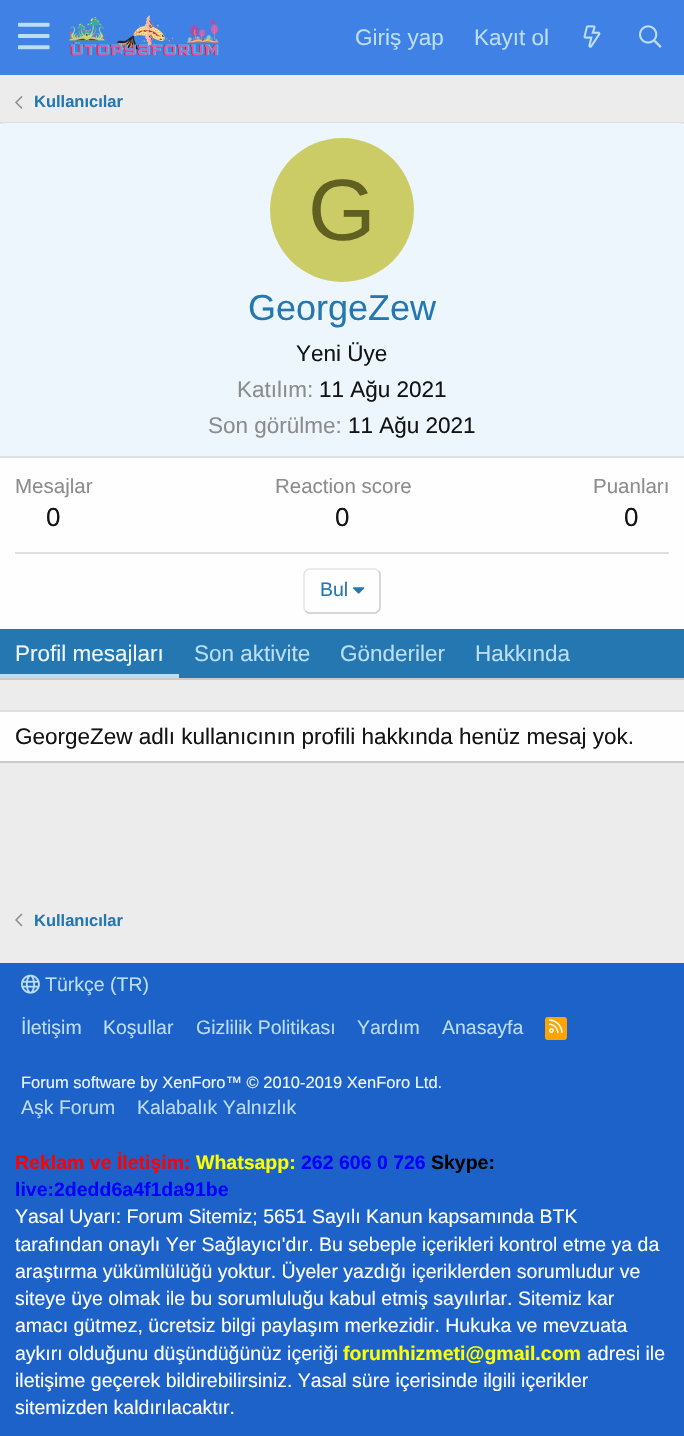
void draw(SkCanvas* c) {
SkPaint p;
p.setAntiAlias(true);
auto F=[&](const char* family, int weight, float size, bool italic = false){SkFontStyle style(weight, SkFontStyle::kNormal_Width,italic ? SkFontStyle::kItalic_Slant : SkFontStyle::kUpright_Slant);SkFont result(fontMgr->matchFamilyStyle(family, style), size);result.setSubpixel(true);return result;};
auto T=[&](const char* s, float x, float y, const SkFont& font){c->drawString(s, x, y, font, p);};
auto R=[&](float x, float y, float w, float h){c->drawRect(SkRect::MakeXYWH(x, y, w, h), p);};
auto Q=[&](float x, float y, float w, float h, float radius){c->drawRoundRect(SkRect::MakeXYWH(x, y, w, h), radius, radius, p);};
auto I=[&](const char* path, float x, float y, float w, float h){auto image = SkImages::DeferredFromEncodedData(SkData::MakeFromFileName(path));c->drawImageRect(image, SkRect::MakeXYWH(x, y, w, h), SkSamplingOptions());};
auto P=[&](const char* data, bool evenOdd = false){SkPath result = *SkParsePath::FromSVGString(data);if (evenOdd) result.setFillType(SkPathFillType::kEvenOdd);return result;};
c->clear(0xffececec);
p.setColor(0xff3f81e4);
R(0,0,684,75);
I("1.png",18,22,32,28);
I("2.png",69,15,150,41);
auto f1 = F("Liberation Sans",400,22.5);
p.setColor(0xffbcdef5);
T("Giriş yap",355,45,f1);
T("Kayıt ol",474,45,f1);
I("3.png",583,25,18,23);
I("4.png",639,25,23,23);
I("5.png",15,96,8,13);
auto f2 = F("Liberation Sans",700,16.5);
p.setColor(0xff2577b1);
T("Kullanıcılar",34,107,f2);
p.setColor(0xfffefefe);
R(0,124,684,505);
p.setColor(0xffdfdfdf);
R(0,122,684,2);
p.setColor(0xffcbcbcb);
R(0,678,684,2);
p.setColor(0xffedf6fd);
c->drawPath(P("M5 123h674c3 0 5 2 5 5v330h-684v-330c0-3 2-5 5-5z"),p);
p.setColor(0xffdfdfdf);
R(0,456,684,2);
p.setColor(0xffcccc66);
c->drawCircle(342,210,72,p);
auto f3 = F("Liberation Sans",400,87);
p.setColor(0xff606020);
T("G",308,240,f3);
auto f4 = F("Liberation Sans",400,36);
p.setColor(0xff2577b1);
T("GeorgeZew",248,320,f4);
p.setColor(0xff141414);
T("Yeni Üye",296,361,f1);
p.setColor(0xff8c8c8c);
T("Katılım:",237,397,f1);
p.setColor(0xff141414);
T("11 Ağu 2021",319,397,f1);
p.setColor(0xff8c8c8c);
T("Son görülme:",208,433,f1);
p.setColor(0xff141414);
T("11 Ağu 2021",348,433,f1);
auto f5 = F("Liberation Sans",400,20.5);
p.setColor(0xff8c8c8c);
T("Mesajlar",15,493,f5);
auto f6 = F("Liberation Sans",400,26);
p.setColor(0xff141414);
T("0",46,526,f6);
p.setColor(0xff8c8c8c);
T("Reaction score",275,493,f5);
p.setColor(0xff141414);
T("0",335,526,f6);
p.setColor(0xff8c8c8c);
T("Puanları",593,493,f5);
p.setColor(0xff141414);
T("0",624,526,f6);
p.setColor(0xffdfdfdf);
R(15,552,654,2);
p.setStroke(true);
p.setStrokeWidth(1.5);
p.setColor(0xffcbcbcb);
c->drawPath(P("M378.5 571c1 1 1.5 2 1.5 3.5v33c0 1.5-.5 2.5-1.5 3.5c-1 1-2 2-3.5 2h-66c-1.5 0-2.5-1-3.5-2"),p);
p.setColor(0xffe5e5e5);
c->drawPath(P("M305.5 611c-1-1-1.5-2-1.5-3.5v-33c0-1.5 .5-2.5 1.5-3.5c1-1 2-2 3.5-2h66c1.5 0 2.5 1 3.5 2"),p);
auto f7 = F("Liberation Sans",400,19.5);
p.setStroke(false);
p.setColor(0xff2577b1);
T("Bul",320,596,f7);
I("6.png",353,587,12,7);
R(0,629,684,49);
p.setColor(0xffbcdef5);
R(0,674,179,4);
p.setColor(0xffedf6fd);
T("Profil mesajları",15,661,f1);
p.setColor(0xffbcdef5);
T("Son aktivite",194,661,f1);
T("Gönderiler",340,661,f1);
T("Hakkında",475,661,f1);
p.setColor(0xfffefefe);
R(0,712,684,49);
p.setColor(0xffdfdfdf);
R(0,710,684,2);
p.setColor(0xffcbcbcb);
R(0,761,684,2);
p.setColor(0xff141414);
T("GeorgeZew adlı kullanıcının profili hakkında henüz mesaj yok.",15,744,f1);
I("7.png",15,913,8,14);
p.setColor(0xff2577b1);
T("Kullanıcılar",34,926,f2);
p.setColor(0xff1c62c9);
R(0,963,684,473);
I("8.png",21,974,19,20);
p.setColor(0xffbcdef5);
T("Türkçe (TR)",45,991,f7);
T("İletişim",21,1034,f7);
T("Koşullar",103,1034,f7);
T("Gizlilik Politikası",196,1034,f7);
T("Yardım",357,1034,f7);
T("Anasayfa",442,1034,f7);
p.setColor(0xffffa500);
Q(545,1017,22,23,3);
I("9.png",549,1019,14,14);
auto f8 = F("Liberation Sans",400,16.5);
p.setColor(0xffedf6fd);
T("Forum software by XenForo™ © 2010-2019 XenForo Ltd.",21,1088,f8);
p.setColor(0xffbcdef5);
T("Aşk Forum",21,1114,f7);
T("Kalabalık Yalnızlık",137,1114,f7);
auto f9 = F("Liberation Sans",700,19.5);
p.setColor(0xffff0000);
T("Reklam ve İletişim:",15,1169,f9);
p.setColor(0xffffff00);
T("Whatsapp:",196,1169,f9);
p.setColor(0xff0000ff);
T("262 606 0 726",301,1169,f9);
p.setColor(0xff000000);
T("Skype:",431,1169,f9);
p.setColor(0xff0000ff);
T("live:2dedd6a4f1da91be",15,1196,f9);
p.setColor(0xffffffff);
T("Yasal Uyarı: Forum Sitemiz; 5651 Sayılı Kanun kapsamında BTK",15,1223,f7);
T("tarafından onaylı Yer Sağlayıcı'dır. Bu sebeple içerikleri kontrol etme ya da",15,1251,f7);
T("araştırma yükümlülüğü yoktur. Üyeler yazdığı içeriklerden sorumludur ve",15,1278,f7);
T("siteye üye olmak ile bu sorumluluğu kabul etmiş sayılırlar. Sitemiz kar",15,1305,f7);
T("amacı gütmez, ücretsiz bilgi paylaşım merkezidir. Hukuka ve mevzuata",15,1332,f7);
T("aykırı olduğunu düşündüğünüz içeriği",15,1360,f7);
p.setColor(0xffffff00);
T("forumhizmeti@gmail.com",343,1360,f9);
p.setColor(0xffffffff);
T("adresi ile",587,1360,f7);
T("iletişime geçerek bildirebilirsiniz. Yasal süre içerisinde ilgili içerikler",15,1387,f7);
T("sitemizden kaldırılacaktır.",15,1414,f7);
}
